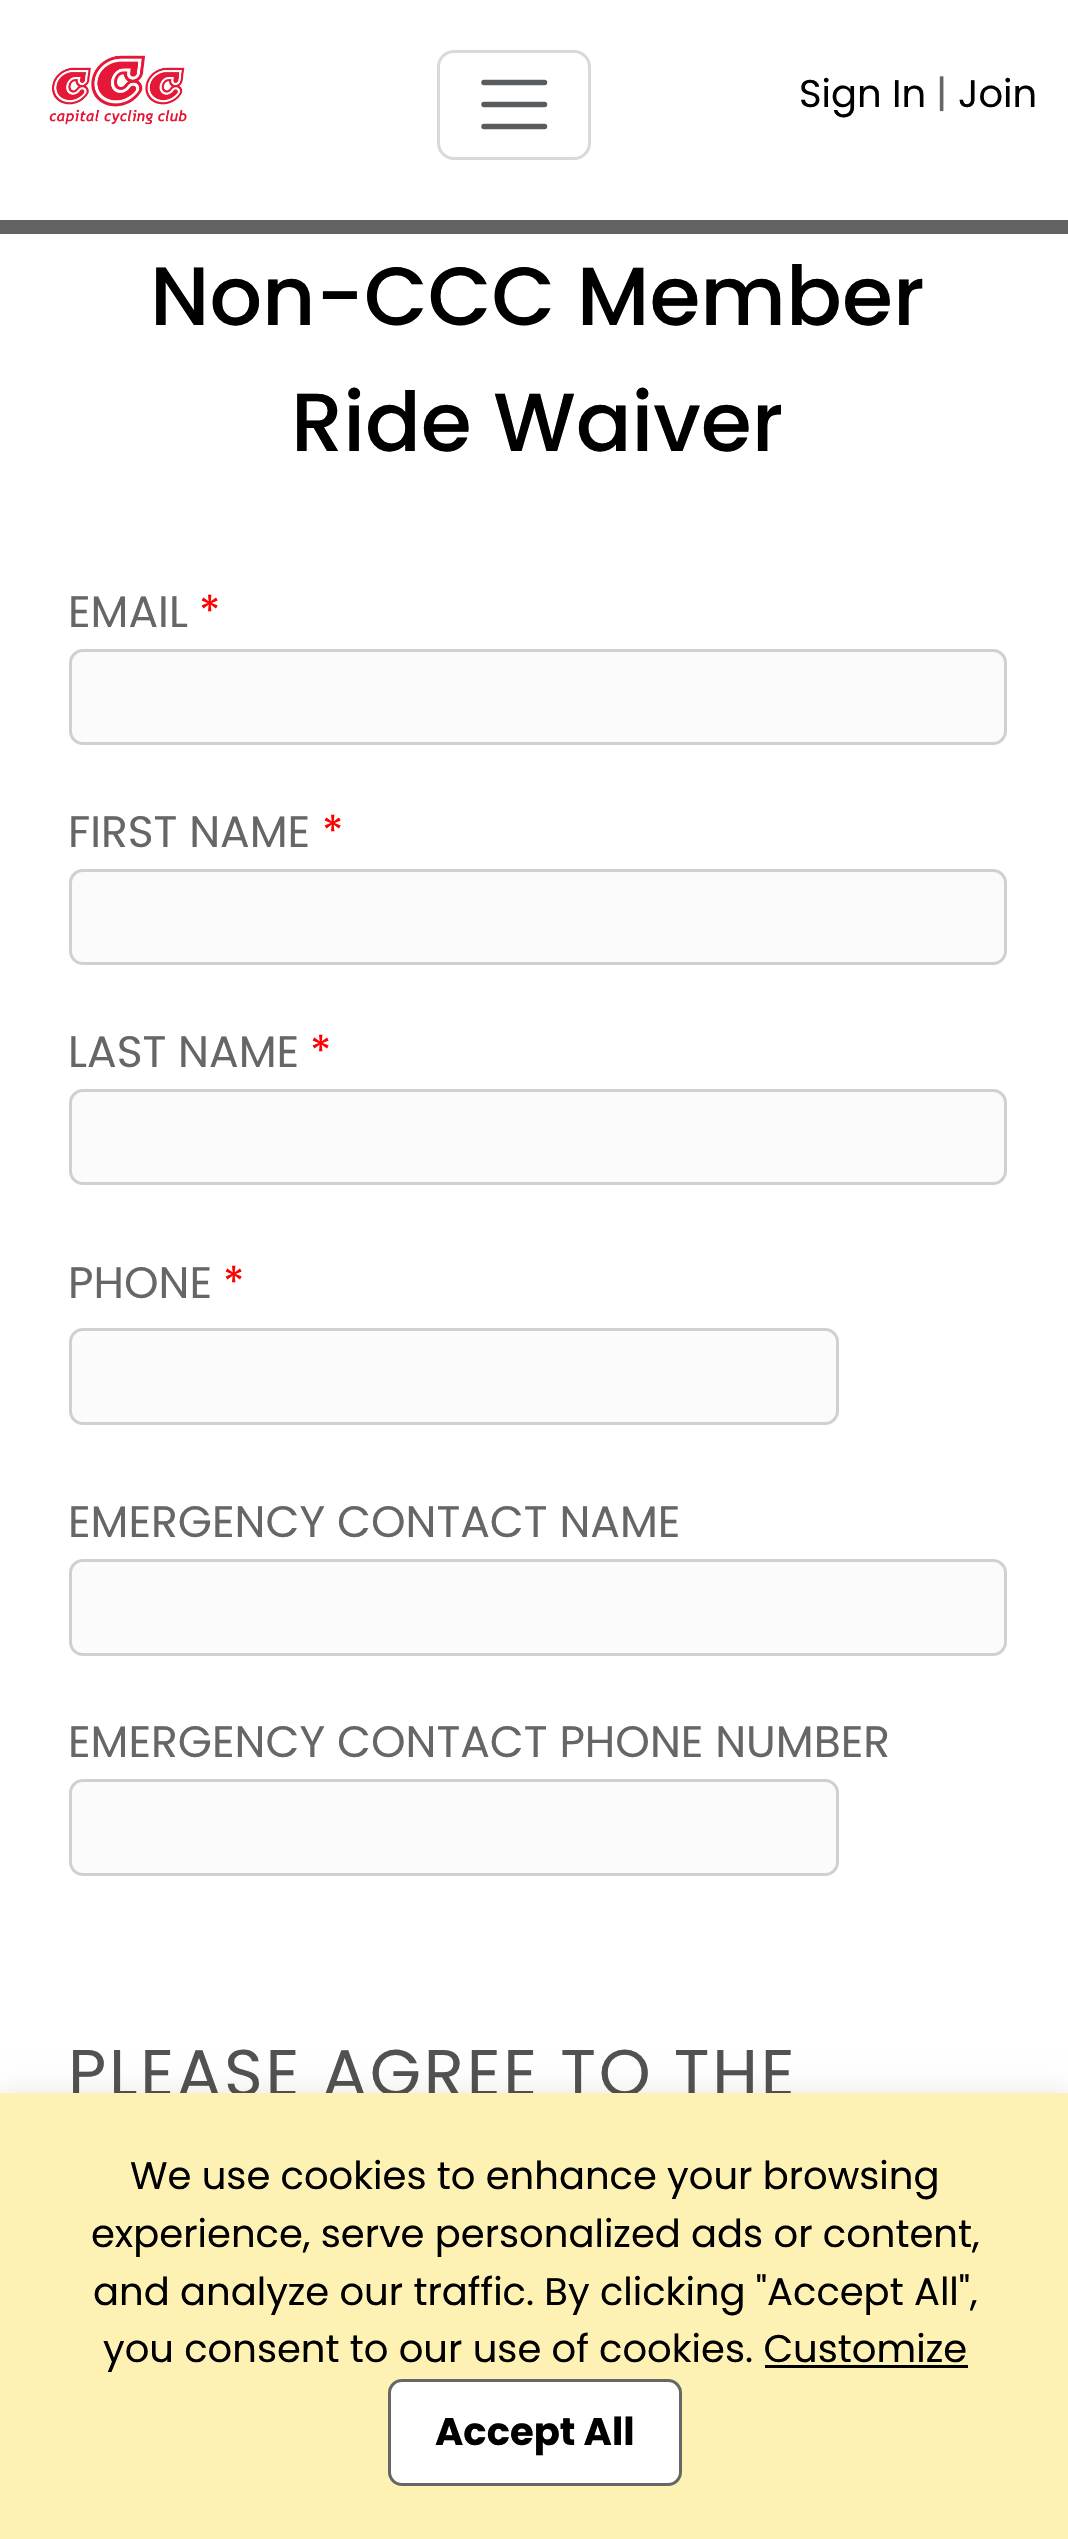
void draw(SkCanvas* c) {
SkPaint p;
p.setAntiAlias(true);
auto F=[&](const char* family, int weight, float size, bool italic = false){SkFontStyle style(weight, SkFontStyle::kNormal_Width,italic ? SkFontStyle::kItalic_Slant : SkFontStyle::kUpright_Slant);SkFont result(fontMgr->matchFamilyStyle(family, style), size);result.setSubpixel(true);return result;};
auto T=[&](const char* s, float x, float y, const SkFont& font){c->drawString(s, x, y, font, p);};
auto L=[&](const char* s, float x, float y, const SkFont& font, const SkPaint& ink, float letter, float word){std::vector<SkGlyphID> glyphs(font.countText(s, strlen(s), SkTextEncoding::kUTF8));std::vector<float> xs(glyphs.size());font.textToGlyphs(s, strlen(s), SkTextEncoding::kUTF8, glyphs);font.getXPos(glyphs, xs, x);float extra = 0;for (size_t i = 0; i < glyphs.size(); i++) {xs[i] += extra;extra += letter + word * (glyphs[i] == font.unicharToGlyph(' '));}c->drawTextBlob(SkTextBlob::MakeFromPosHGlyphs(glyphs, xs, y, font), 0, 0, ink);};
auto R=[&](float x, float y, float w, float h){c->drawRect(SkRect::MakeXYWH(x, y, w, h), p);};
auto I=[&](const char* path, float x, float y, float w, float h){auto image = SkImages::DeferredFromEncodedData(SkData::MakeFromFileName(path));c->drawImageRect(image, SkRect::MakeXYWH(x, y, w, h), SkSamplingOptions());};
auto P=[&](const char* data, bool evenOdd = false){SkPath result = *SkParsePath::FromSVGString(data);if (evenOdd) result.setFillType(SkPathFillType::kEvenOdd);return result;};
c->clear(0xffffffff);
p.setColor(0xff636363);
R(0,220,1068,14);
I("1.png",49,55,138,70);
p.setStroke(true);
p.setStrokeWidth(3);
p.setColor(0xffd9d9d9);
c->drawRoundRect(SkRect::MakeXYWH(438.5,51.5,151,107),15.5,15.5,p);
p.setStrokeWidth(5.5);
p.setStrokeCap(SkPaint::kRound_Cap);
p.setColor(0xff595c5f);
c->drawPath(P("M484 82.5h60.5m-60.5 22h60.5m-60.5 22h60.5"),p);
auto f1 = F("Poppins",400,38.5);
p.setStroke(false);
p.setColor(0xff000000);
T("Sign In",799,107,f1);
p.setColor(0xff666666);
T("|",936,107,f1);
p.setColor(0xff000000);
T("Join",958,107,f1);
auto f2 = F("Poppins",500,82.5);
T("Non-CCC Member",150,325,f2);
T("Ride Waiver",291,451,f2);
auto f3 = F("Poppins",400,44);
p.setColor(0xff666666);
T("EMAIL",68,627,f3);
p.setColor(0xffff0000);
T("*",199,627,f3);
p.setColor(0xfffbfbfb);
c->drawRoundRect(SkRect::MakeXYWH(70.5,650.5,935,93),12.5,12.5,p);
p.setStroke(true);
p.setStrokeWidth(3);
p.setStrokeCap(SkPaint::kButt_Cap);
p.setColor(0xffd0d0d0);
c->drawRoundRect(SkRect::MakeXYWH(70.5,650.5,935,93),12.5,12.5,p);
p.setStroke(false);
p.setColor(0xff666666);
T("FIRST NAME",68,847,f3);
p.setColor(0xffff0000);
T("*",322,847,f3);
p.setColor(0xfffbfbfb);
c->drawRoundRect(SkRect::MakeXYWH(70.5,870.5,935,93),12.5,12.5,p);
p.setStroke(true);
p.setColor(0xffd0d0d0);
c->drawRoundRect(SkRect::MakeXYWH(70.5,870.5,935,93),12.5,12.5,p);
p.setStroke(false);
p.setColor(0xff666666);
T("LAST NAME",68,1067,f3);
p.setColor(0xffff0000);
T("*",310,1067,f3);
p.setColor(0xfffbfbfb);
c->drawRoundRect(SkRect::MakeXYWH(70.5,1090.5,935,93),12.5,12.5,p);
p.setStroke(true);
p.setColor(0xffd0d0d0);
c->drawRoundRect(SkRect::MakeXYWH(70.5,1090.5,935,93),12.5,12.5,p);
p.setStroke(false);
p.setColor(0xff666666);
T("PHONE",68,1298,f3);
p.setColor(0xffff0000);
T("*",223,1298,f3);
p.setColor(0xfffbfbfb);
c->drawRoundRect(SkRect::MakeXYWH(70.5,1329.5,767,94),12.5,12.5,p);
p.setStroke(true);
p.setColor(0xffd0d0d0);
c->drawRoundRect(SkRect::MakeXYWH(70.5,1329.5,767,94),12.5,12.5,p);
p.setStroke(false);
p.setColor(0xff666666);
T("EMERGENCY CONTACT NAME",68,1537,f3);
p.setColor(0xfffbfbfb);
c->drawRoundRect(SkRect::MakeXYWH(70.5,1560.5,935,94),12.5,12.5,p);
p.setStroke(true);
p.setColor(0xffd0d0d0);
c->drawRoundRect(SkRect::MakeXYWH(70.5,1560.5,935,94),12.5,12.5,p);
p.setStroke(false);
p.setColor(0xff666666);
T("EMERGENCY CONTACT PHONE NUMBER",68,1757,f3);
p.setColor(0xfffbfbfb);
c->drawRoundRect(SkRect::MakeXYWH(70.5,1780.5,767,94),12.5,12.5,p);
p.setStroke(true);
p.setColor(0xffd0d0d0);
c->drawRoundRect(SkRect::MakeXYWH(70.5,1780.5,767,94),12.5,12.5,p);
auto f4 = F("Poppins",400,66);
p.setStroke(false);
p.setColor(0xff525252);
L("PLEASE AGREE TO THE",68,2096,f4,p,2.75,0);
p.setColor(0x1a000000);
p.setMaskFilter(SkMaskFilter::MakeBlur(kNormal_SkBlurStyle, 14));
c->drawRect(SkRect::MakeXYWH(0,2093,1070,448),p);
p.setMaskFilter(nullptr);
p.setColor(0xfffdf1b3);
R(0,2093,1068,446);
p.setColor(0xff000000);
T("We use cookies to enhance your browsing",130,2189,f1);
T("experience, serve personalized ads or content,",91,2247,f1);
T("and analyze our traffic. By clicking \"Accept All\",",93,2305,f1);
T("you consent to our use of cookies. Customize",103,2362,f1);
R(765,2365,203,3);
p.setColor(0xffffffff);
c->drawRoundRect(SkRect::MakeXYWH(389.5,2380.5,291,104),12.5,12.5,p);
p.setStroke(true);
p.setColor(0xff666666);
c->drawRoundRect(SkRect::MakeXYWH(389.5,2380.5,291,104),12.5,12.5,p);
auto f5 = F("Poppins",700,38.5);
p.setStroke(false);
p.setColor(0xff000000);
T("Accept All",435,2445,f5);
}
